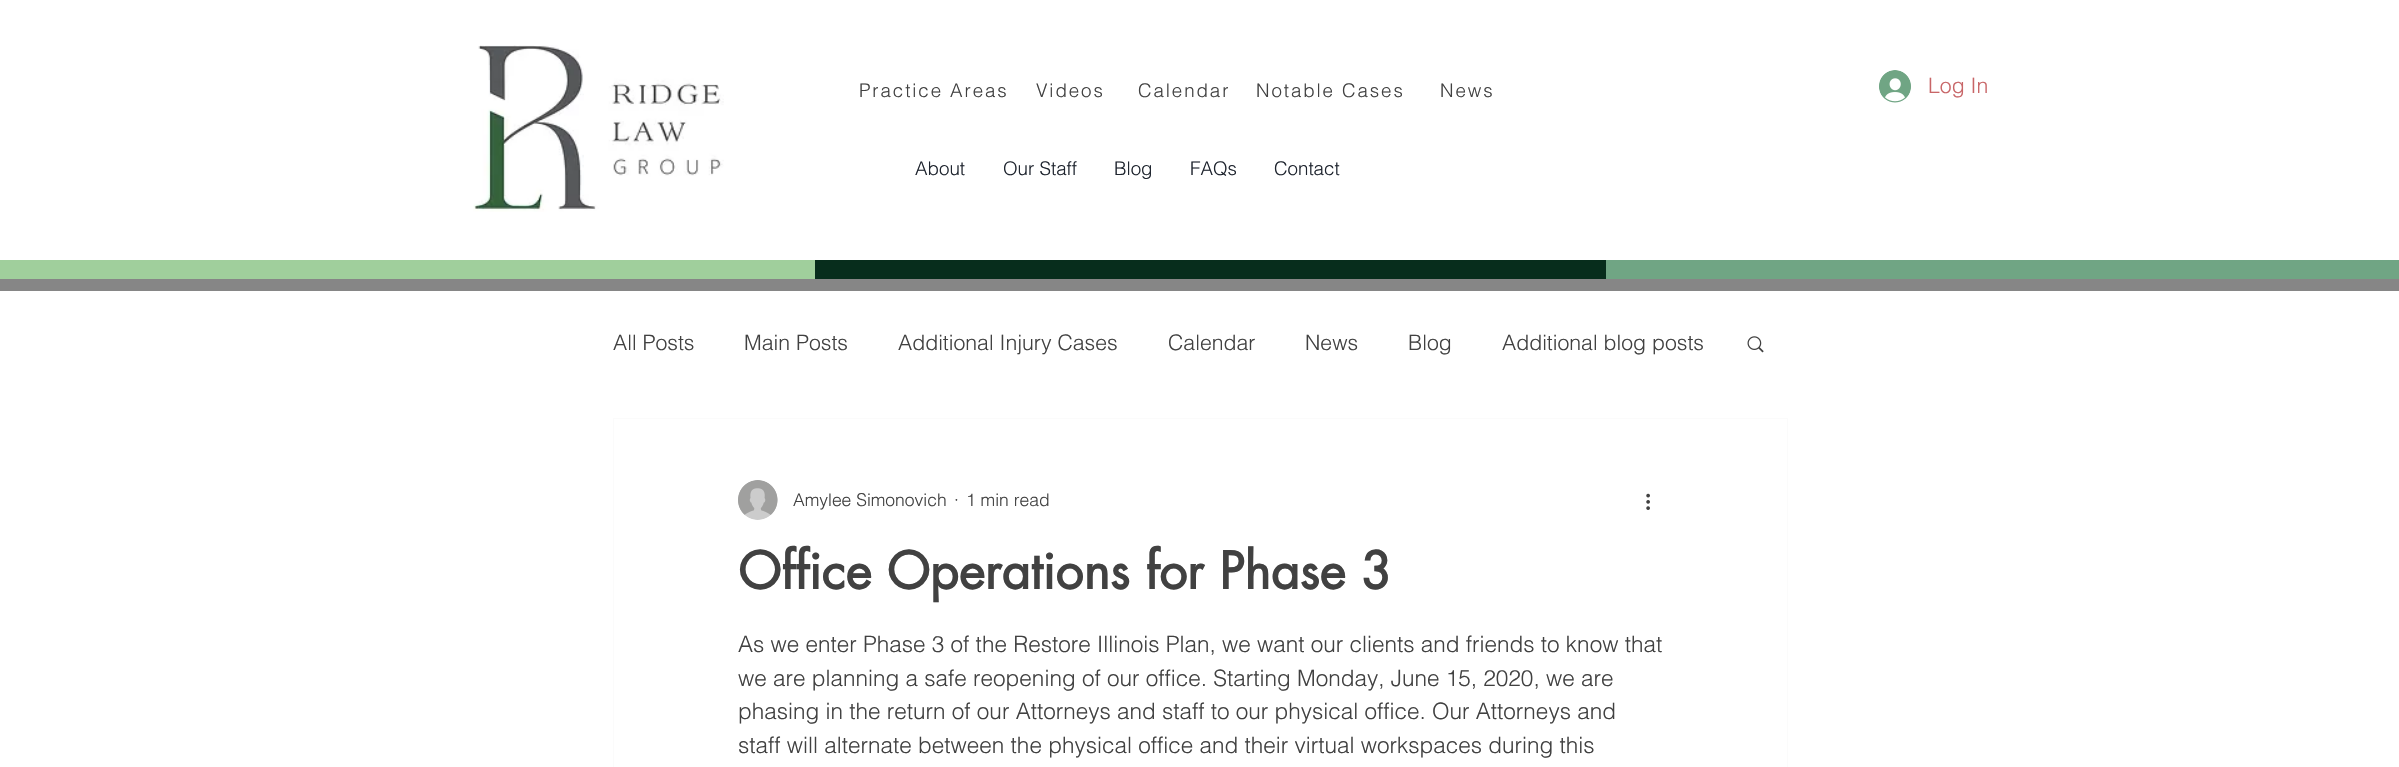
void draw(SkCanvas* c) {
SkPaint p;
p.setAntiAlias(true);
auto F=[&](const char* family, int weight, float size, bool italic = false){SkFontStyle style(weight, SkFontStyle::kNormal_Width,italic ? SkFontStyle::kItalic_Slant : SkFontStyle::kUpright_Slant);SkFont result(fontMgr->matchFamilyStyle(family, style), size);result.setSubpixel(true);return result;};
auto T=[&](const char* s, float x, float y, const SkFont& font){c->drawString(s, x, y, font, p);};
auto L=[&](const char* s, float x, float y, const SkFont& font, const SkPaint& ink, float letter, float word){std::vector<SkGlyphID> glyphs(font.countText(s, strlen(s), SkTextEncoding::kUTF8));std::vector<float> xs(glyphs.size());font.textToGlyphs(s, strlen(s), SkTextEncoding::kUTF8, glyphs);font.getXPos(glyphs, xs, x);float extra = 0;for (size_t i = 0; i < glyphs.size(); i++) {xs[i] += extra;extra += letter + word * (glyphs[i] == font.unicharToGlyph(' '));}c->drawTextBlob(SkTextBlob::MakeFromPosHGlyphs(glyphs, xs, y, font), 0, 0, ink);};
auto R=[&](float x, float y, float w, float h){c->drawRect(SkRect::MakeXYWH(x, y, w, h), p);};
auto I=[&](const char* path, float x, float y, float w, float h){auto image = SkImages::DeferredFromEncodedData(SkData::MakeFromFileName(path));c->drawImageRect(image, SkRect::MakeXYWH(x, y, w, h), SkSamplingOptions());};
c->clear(0xffffffff);
I("1.png",473,45,251,167);
auto f1 = F("helvetica",300,18.75);
p.setColor(0xff414141);
L("Practice Areas",859,97,f1,p,1.9,0);
L("Videos",1036,97,f1,p,1.9,0);
L("Calendar",1138,97,f1,p,1.9,0);
L("Notable Cases",1256,97,f1,p,1.9,0);
L("News",1440,97,f1,p,1.9,0);
I("2.png",1879,70,32,33);
auto f2 = F("helvetica",300,21.25);
p.setColor(0xffc86567);
T("Log In",1928,93,f2);
p.setColor(0xff1e242e);
T("About",915,175,f1);
T("Our Staff",1003,175,f1);
T("Blog",1114,175,f1);
T("FAQs",1190,175,f1);
T("Contact",1274,175,f1);
p.setColor(0xffa0cf9c);
R(0,260,815,19);
p.setColor(0xff072d1c);
R(815,260,791,19);
p.setColor(0xff70a584);
R(1606,260,793,19);
p.setColor(0xff868686);
R(0,279,2399,12);
p.setColor(0xff414141);
T("All Posts",613,350,f2);
T("Main Posts",744,350,f2);
T("Additional Injury Cases",898,350,f2);
T("Calendar",1168,350,f2);
T("News",1305,350,f2);
T("Blog",1408,350,f2);
T("Additional blog posts",1502,350,f2);
I("3.png",1747,336,17,17);
p.setStroke(true);
p.setStrokeWidth(1);
p.setColor(0xfffbfbfb);
c->drawRect(SkRect::MakeXYWH(613.5,418.5,1174,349),p);
I("4.png",738,480,40,40);
auto f3 = F("helvetica",300,17.5);
p.setStroke(false);
p.setColor(0xff414141);
T("Amylee Simonovich",793,506,f3);
T("·",954,506,f3);
T("1 min read",966,506,f3);
I("5.png",1646,493,4,17);
auto f4 = F("futura",700,50);
T("Office Operations for Phase 3",738,589,f4);
auto f5 = F("helvetica",300,22.5);
T("As we enter Phase 3 of the Restore Illinois Plan, we want our clients and friends to know that",738,652,f5);
T("we are planning a safe reopening of our office. Starting Monday, June 15, 2020, we are",738,686,f5);
T("phasing in the return of our Attorneys and staff to our physical office. Our Attorneys and",738,719,f5);
T("staff will alternate between the physical office and their virtual workspaces during this",738,753,f5);
}
